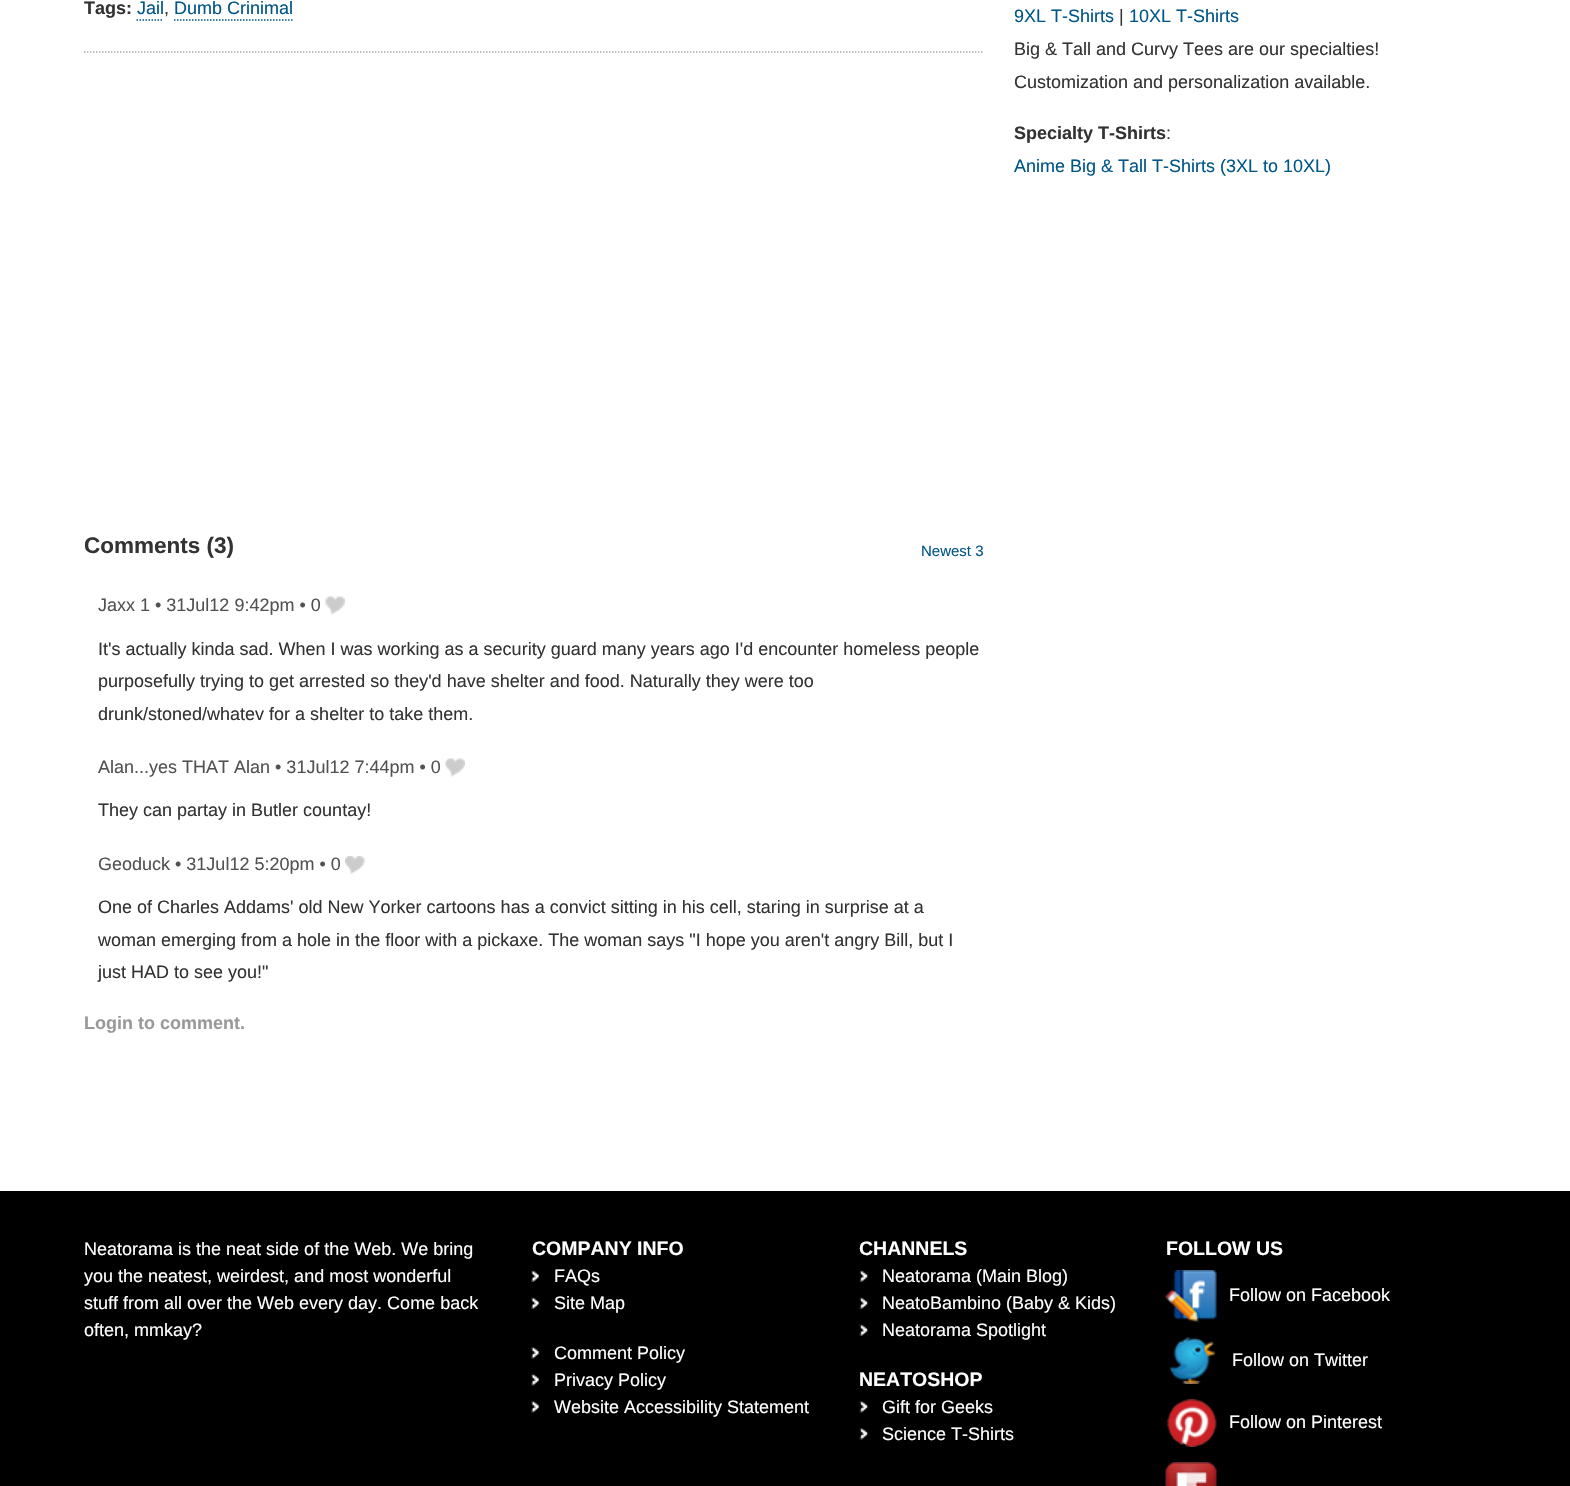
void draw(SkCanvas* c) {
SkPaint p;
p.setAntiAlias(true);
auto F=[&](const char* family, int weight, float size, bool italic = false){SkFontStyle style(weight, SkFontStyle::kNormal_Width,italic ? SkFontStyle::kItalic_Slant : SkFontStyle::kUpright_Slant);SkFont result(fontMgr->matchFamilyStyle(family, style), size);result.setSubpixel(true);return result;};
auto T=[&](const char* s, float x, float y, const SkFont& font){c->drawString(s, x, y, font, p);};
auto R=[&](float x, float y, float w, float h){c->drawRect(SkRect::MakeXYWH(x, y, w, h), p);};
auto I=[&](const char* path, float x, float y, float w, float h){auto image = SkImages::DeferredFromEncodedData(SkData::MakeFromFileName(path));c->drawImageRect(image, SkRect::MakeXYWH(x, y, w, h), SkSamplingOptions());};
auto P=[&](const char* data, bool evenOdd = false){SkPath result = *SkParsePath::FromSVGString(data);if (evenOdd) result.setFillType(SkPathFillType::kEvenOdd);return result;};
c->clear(0xffffffff);
auto f1 = F("Liberation Sans",700,18);
p.setColor(0xff333333);
T("Tags:",84,14,f1);
auto f2 = F("Liberation Sans",400,18);
p.setColor(0xff005689);
T("Jail",137,14,f2);
p.setStroke(true);
p.setStrokeWidth(1.5);
p.setPathEffect(SkDashPathEffect::Make({{1.5f,1.5f}}, 0));
c->drawPath(P("M136.5 20h27"),p);
p.setPathEffect(nullptr);
p.setStroke(false);
p.setColor(0xff333333);
T(",",164,14,f2);
p.setColor(0xff005689);
T("Dumb Crinimal",174,14,f2);
p.setStroke(true);
p.setPathEffect(SkDashPathEffect::Make({{1.5f,1.5f}}, 0));
c->drawPath(P("M174 20h118.5"),p);
p.setPathEffect(nullptr);
p.setColor(0xffaaaaaa);
p.setPathEffect(SkDashPathEffect::Make({{1.5f,1.5f}}, 0));
c->drawPath(P("M84 52h900"),p);
p.setPathEffect(nullptr);
auto f3 = F("Liberation Sans",700,22.5);
p.setStroke(false);
p.setColor(0xff333333);
T("Comments (3)",84,553,f3);
auto f4 = F("Liberation Sans",400,15);
p.setColor(0xff005689);
T("Newest 3",921,556,f4);
p.setColor(0xff525252);
T("Jaxx 1 • 31Jul12 9:42pm • 0",98,611,f2);
I("1.png",325,596,20,19);
p.setColor(0xff333333);
T("It's actually kinda sad. When I was working as a security guard many years ago I'd encounter homeless people",98,655,f2);
T("purposefully trying to get arrested so they'd have shelter and food. Naturally they were too",98,687,f2);
T("drunk/stoned/whatev for a shelter to take them.",98,720,f2);
p.setColor(0xff525252);
T("Alan...yes THAT Alan • 31Jul12 7:44pm • 0",98,773,f2);
I("1.png",445,758,20,19);
p.setColor(0xff333333);
T("They can partay in Butler countay!",98,816,f2);
p.setColor(0xff525252);
T("Geoduck • 31Jul12 5:20pm • 0",98,870,f2);
I("2.png",345,856,20,18);
p.setColor(0xff333333);
T("One of Charles Addams' old New Yorker cartoons has a convict sitting in his cell, staring in surprise at a",98,913,f2);
T("woman emerging from a hole in the floor with a pickaxe. The woman says \"I hope you aren't angry Bill, but I",98,946,f2);
T("just HAD to see you!\"",98,978,f2);
p.setColor(0xff999999);
T("Login to comment.",84,1029,f1);
p.setColor(0xff005689);
T("9XL T-Shirts",1014,22,f2);
p.setColor(0xff333333);
T("|",1119,22,f2);
p.setColor(0xff005689);
T("10XL T-Shirts",1129,22,f2);
p.setColor(0xff333333);
T("Big & Tall and Curvy Tees are our specialties!",1014,55,f2);
T("Customization and personalization available.",1014,88,f2);
T("Specialty T-Shirts",1014,139,f1);
T(":",1166,139,f2);
p.setColor(0xff005689);
T("Anime Big & Tall T-Shirts (3XL to 10XL)",1014,172,f2);
p.setColor(0xff000000);
R(0,1191,1570,295);
p.setColor(0xffffffff);
T("Neatorama is the neat side of the Web. We bring",84,1255,f2);
T("you the neatest, weirdest, and most wonderful",84,1282,f2);
T("stuff from all over the Web every day. Come back",84,1309,f2);
T("often, mmkay?",84,1336,f2);
auto f5 = F("Liberation Sans",700,19.5);
T("COMPANY INFO",532,1255,f5);
I("3.png",531,1270,9,12);
T("FAQs",554,1282,f2);
I("3.png",531,1297,9,12);
T("Site Map",554,1309,f2);
I("4.png",531,1346,9,13);
T("Comment Policy",554,1359,f2);
I("4.png",531,1373,9,13);
T("Privacy Policy",554,1386,f2);
I("4.png",531,1400,9,13);
T("Website Accessibility Statement",554,1413,f2);
T("CHANNELS",859,1255,f5);
I("5.png",859,1270,10,12);
T("Neatorama (Main Blog)",882,1282,f2);
I("5.png",859,1297,10,12);
T("NeatoBambino (Baby & Kids)",882,1309,f2);
I("5.png",859,1324,10,12);
T("Neatorama Spotlight",882,1336,f2);
T("NEATOSHOP",859,1386,f5);
I("6.png",859,1400,10,13);
T("Gift for Geeks",882,1413,f2);
I("6.png",859,1427,10,13);
T("Science T-Shirts",882,1440,f2);
T("FOLLOW US",1166,1255,f5);
I("7.png",1165,1270,52,53);
T("Follow on Facebook",1229,1301,f2);
I("8.png",1169,1337,47,47);
T("Follow on Twitter",1232,1366,f2);
I("9.png",1166,1399,51,48);
T("Follow on Pinterest",1229,1428,f2);
I("10.png",1165,1462,52,24);
}
